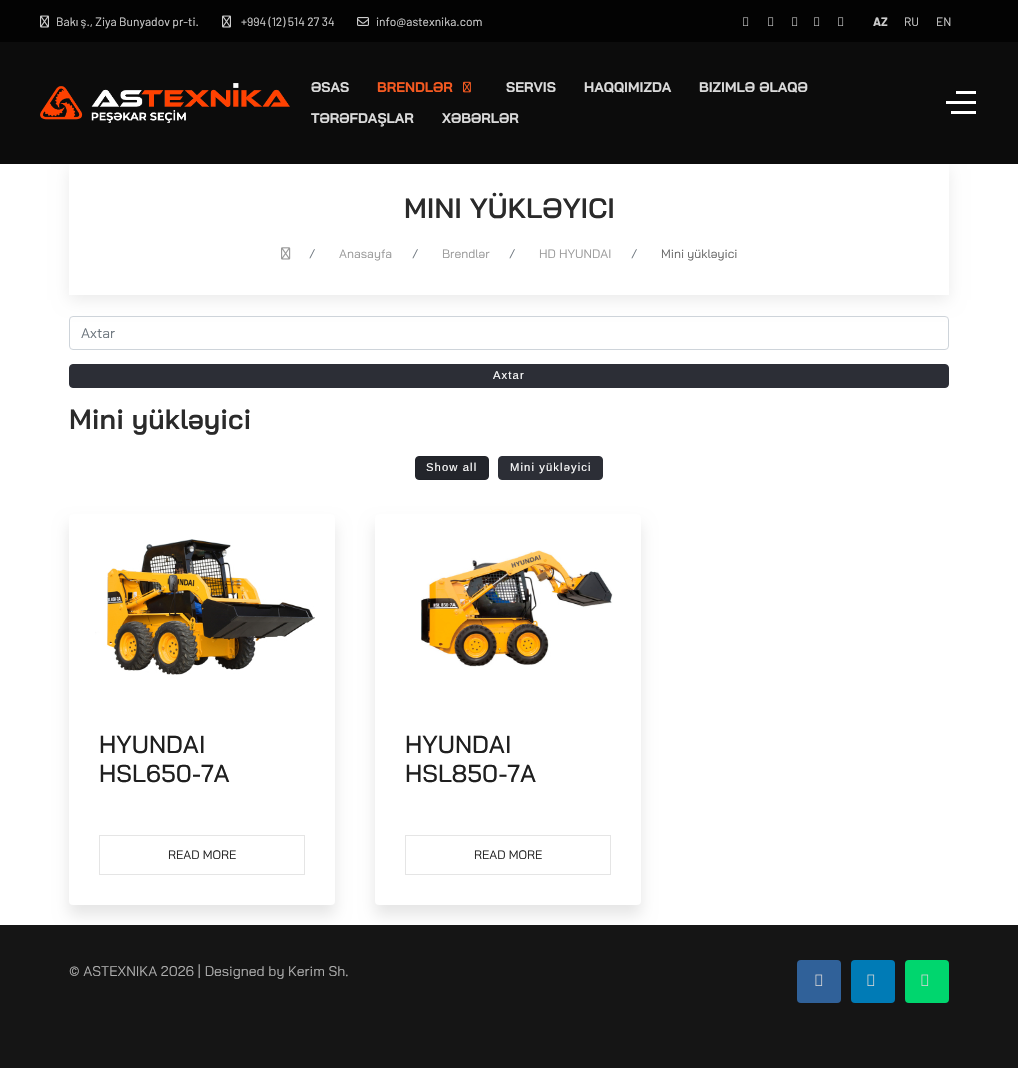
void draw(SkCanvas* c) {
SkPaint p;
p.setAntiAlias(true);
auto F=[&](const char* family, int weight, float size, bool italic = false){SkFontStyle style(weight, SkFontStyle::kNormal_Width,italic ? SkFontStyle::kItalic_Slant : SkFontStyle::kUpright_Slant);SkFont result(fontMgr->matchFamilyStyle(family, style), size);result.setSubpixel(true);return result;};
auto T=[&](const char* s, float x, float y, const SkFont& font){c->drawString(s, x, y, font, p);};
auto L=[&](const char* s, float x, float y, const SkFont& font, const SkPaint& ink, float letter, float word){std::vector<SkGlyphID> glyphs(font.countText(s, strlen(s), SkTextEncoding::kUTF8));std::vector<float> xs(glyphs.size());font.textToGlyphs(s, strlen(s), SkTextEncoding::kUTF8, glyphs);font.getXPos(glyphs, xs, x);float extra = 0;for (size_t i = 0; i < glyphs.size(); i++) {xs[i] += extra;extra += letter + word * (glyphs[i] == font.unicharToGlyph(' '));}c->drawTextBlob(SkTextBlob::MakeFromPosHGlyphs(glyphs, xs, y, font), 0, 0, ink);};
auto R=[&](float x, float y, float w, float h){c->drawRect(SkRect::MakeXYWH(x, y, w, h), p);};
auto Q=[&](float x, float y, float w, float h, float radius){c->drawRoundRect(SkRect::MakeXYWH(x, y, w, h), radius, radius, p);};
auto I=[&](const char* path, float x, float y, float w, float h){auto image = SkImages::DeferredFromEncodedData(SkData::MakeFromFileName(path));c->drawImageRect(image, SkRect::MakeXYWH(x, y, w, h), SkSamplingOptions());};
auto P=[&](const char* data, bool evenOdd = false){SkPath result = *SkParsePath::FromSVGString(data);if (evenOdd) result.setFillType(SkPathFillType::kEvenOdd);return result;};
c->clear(0xffffffff);
c->save();
c->clipPath(P("M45 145h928v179h-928zm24 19h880v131h-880z",true),true);
p.setColor(0x14000000);
p.setMaskFilter(SkMaskFilter::MakeBlur(kNormal_SkBlurStyle, 7.5));
c->drawRect(SkRect::MakeXYWH(69,169,880,131),p);
p.setMaskFilter(nullptr);
c->restore();
p.setColor(0x33030303);
R(0,42,1018,122);
p.setColor(0xff030303);
R(0,0,1018,42);
I("1.png",40,15,9,13);
auto f1 = F("Barlow",400,12);
p.setColor(0xffcdcdcd);
T("Bakı ş., Ziya Bunyadov pr-ti.",56,26,f1);
I("1.png",222,15,9,13);
T("+994 (12) 514 27 34",241,26,f1);
I("2.png",357,17,12,9);
T("info@astexnika.com",376,26,f1);
I("3.png",743,17,6,9);
I("3.png",768,17,6,9);
I("3.png",792,17,6,9);
I("3.png",814,17,6,9);
I("3.png",838,17,6,9);
auto f2 = F("Barlow",700,12);
T("AZ",873,26,f2);
T("RU",904,26,f1);
T("EN",936,26,f1);
p.setColor(0xfc090909);
R(0,42,1018,122);
I("4.png",40,83,250,40);
auto f3 = F("Bai Jamjuree",700,14);
p.setColor(0xffdadada);
T("ƏSAS",311,92,f3);
p.setColor(0xfff65a21);
T("BRENDLƏR",377,92,f3);
I("5.png",463,81,8,12);
p.setColor(0xffdadada);
T("SERVIS",506,92,f3);
T("HAQQIMIZDA",584,92,f3);
T("BIZIMLƏ ƏLAQƏ",699,92,f3);
T("TƏRƏFDAŞLAR",311,123,f3);
T("XƏBƏRLƏR",442,123,f3);
p.setColor(0xffffffff);
R(946,101,30,3);
R(956,91,20,3);
R(951,111,25,3);
auto f4 = F("Bai Jamjuree",600,28);
p.setColor(0xff2a2a2a);
T("MINI YÜKLƏYICI",404,218,f4);
I("6.png",281,247,10,13);
auto f5 = F("Bai Jamjuree",400,12.25);
p.setColor(0xff6c757d);
T("/",309,258,f5);
p.setColor(0xff999999);
T("Anasayfa",339,258,f5);
p.setColor(0xff6c757d);
T("/",412,258,f5);
p.setColor(0xff999999);
T("Brendlər",442,258,f5);
p.setColor(0xff6c757d);
T("/",509,258,f5);
p.setColor(0xff999999);
T("HD HYUNDAI",539,258,f5);
p.setColor(0xff6c757d);
T("/",631,258,f5);
p.setColor(0xff666666);
T("Mini yükləyici",661,258,f5);
p.setStroke(true);
p.setStrokeWidth(1);
p.setColor(0xffced4da);
c->drawRoundRect(SkRect::MakeXYWH(69.5,316.5,879,33),3.5,3.5,p);
auto f6 = F("Bai Jamjuree",400,14);
p.setStroke(false);
p.setColor(0xff6c757d);
T("Axtar",81,338,f6);
p.setColor(0xff2c2e36);
c->drawRoundRect(SkRect::MakeXYWH(69.5,364.5,879,23),3.5,3.5,p);
p.setStroke(true);
c->drawRoundRect(SkRect::MakeXYWH(69.5,364.5,879,23),3.5,3.5,p);
auto f7 = F("Liberation Sans",400,11.25);
p.setStroke(false);
p.setColor(0xffffffff);
L("Axtar",493,379,f7,p,1.1,0);
p.setColor(0xff2a2a2a);
T("Mini yükləyici",69,429,f4);
p.setColor(0xff23252b);
c->drawRoundRect(SkRect::MakeXYWH(415.5,456.5,73,23),3.5,3.5,p);
p.setStroke(true);
p.setColor(0xff212329);
c->drawRoundRect(SkRect::MakeXYWH(415.5,456.5,73,23),3.5,3.5,p);
p.setStroke(false);
p.setColor(0xffffffff);
L("Show all",426,471,f7,p,1.1,0);
p.setColor(0xff2c2e36);
c->drawRoundRect(SkRect::MakeXYWH(498.5,456.5,104,23),3.5,3.5,p);
p.setStroke(true);
c->drawRoundRect(SkRect::MakeXYWH(498.5,456.5,104,23),3.5,3.5,p);
p.setStroke(false);
p.setColor(0xffffffff);
L("Mini yükləyici",510,471,f7,p,1.1,0);
p.setColor(0xff151515);
R(0,925,1018,143);
p.setColor(0x1a000000);
p.setMaskFilter(SkMaskFilter::MakeBlur(kNormal_SkBlurStyle, 7.5));
c->drawRoundRect(SkRect::MakeXYWH(69,524,266,391),4,4,p);
p.setMaskFilter(nullptr);
p.setColor(0xffffffff);
Q(69,514,266,391,4);
I("7.png",95,539,220,136);
auto f8 = F("Bai Jamjuree",500,24.5);
p.setColor(0xff1f1f1f);
T("HYUNDAI",99,753,f8);
T("HSL650-7A",99,782,f8);
p.setStroke(true);
p.setColor(0xffe5e5e5);
c->drawRect(SkRect::MakeXYWH(99.5,835.5,205,39),p);
p.setStroke(false);
p.setColor(0xff1f1f1f);
T("READ MORE",168,859,f5);
p.setColor(0x1a000000);
p.setMaskFilter(SkMaskFilter::MakeBlur(kNormal_SkBlurStyle, 7.5));
c->drawRoundRect(SkRect::MakeXYWH(375,524,266,391),4,4,p);
p.setMaskFilter(nullptr);
p.setColor(0xffffffff);
Q(375,514,266,391,4);
I("8.png",421,550,192,117);
p.setColor(0xff1f1f1f);
T("HYUNDAI",405,753,f8);
T("HSL850-7A",405,782,f8);
p.setStroke(true);
p.setColor(0xffe5e5e5);
c->drawRect(SkRect::MakeXYWH(405.5,835.5,205,39),p);
p.setStroke(false);
p.setColor(0xff1f1f1f);
T("READ MORE",474,859,f5);
p.setColor(0xffadadad);
T("© ASTEXNIKA 2026 | Designed by Kerim Sh.",69,976,f6);
p.setColor(0xff306199);
Q(797,960,44,43,4);
I("9.png",815,974,8,12);
p.setColor(0xff007bb6);
Q(851,960,44,43,4);
I("10.png",867,974,8,12);
p.setColor(0xff00d66e);
Q(905,960,44,43,4);
I("11.png",921,974,8,12);
}
